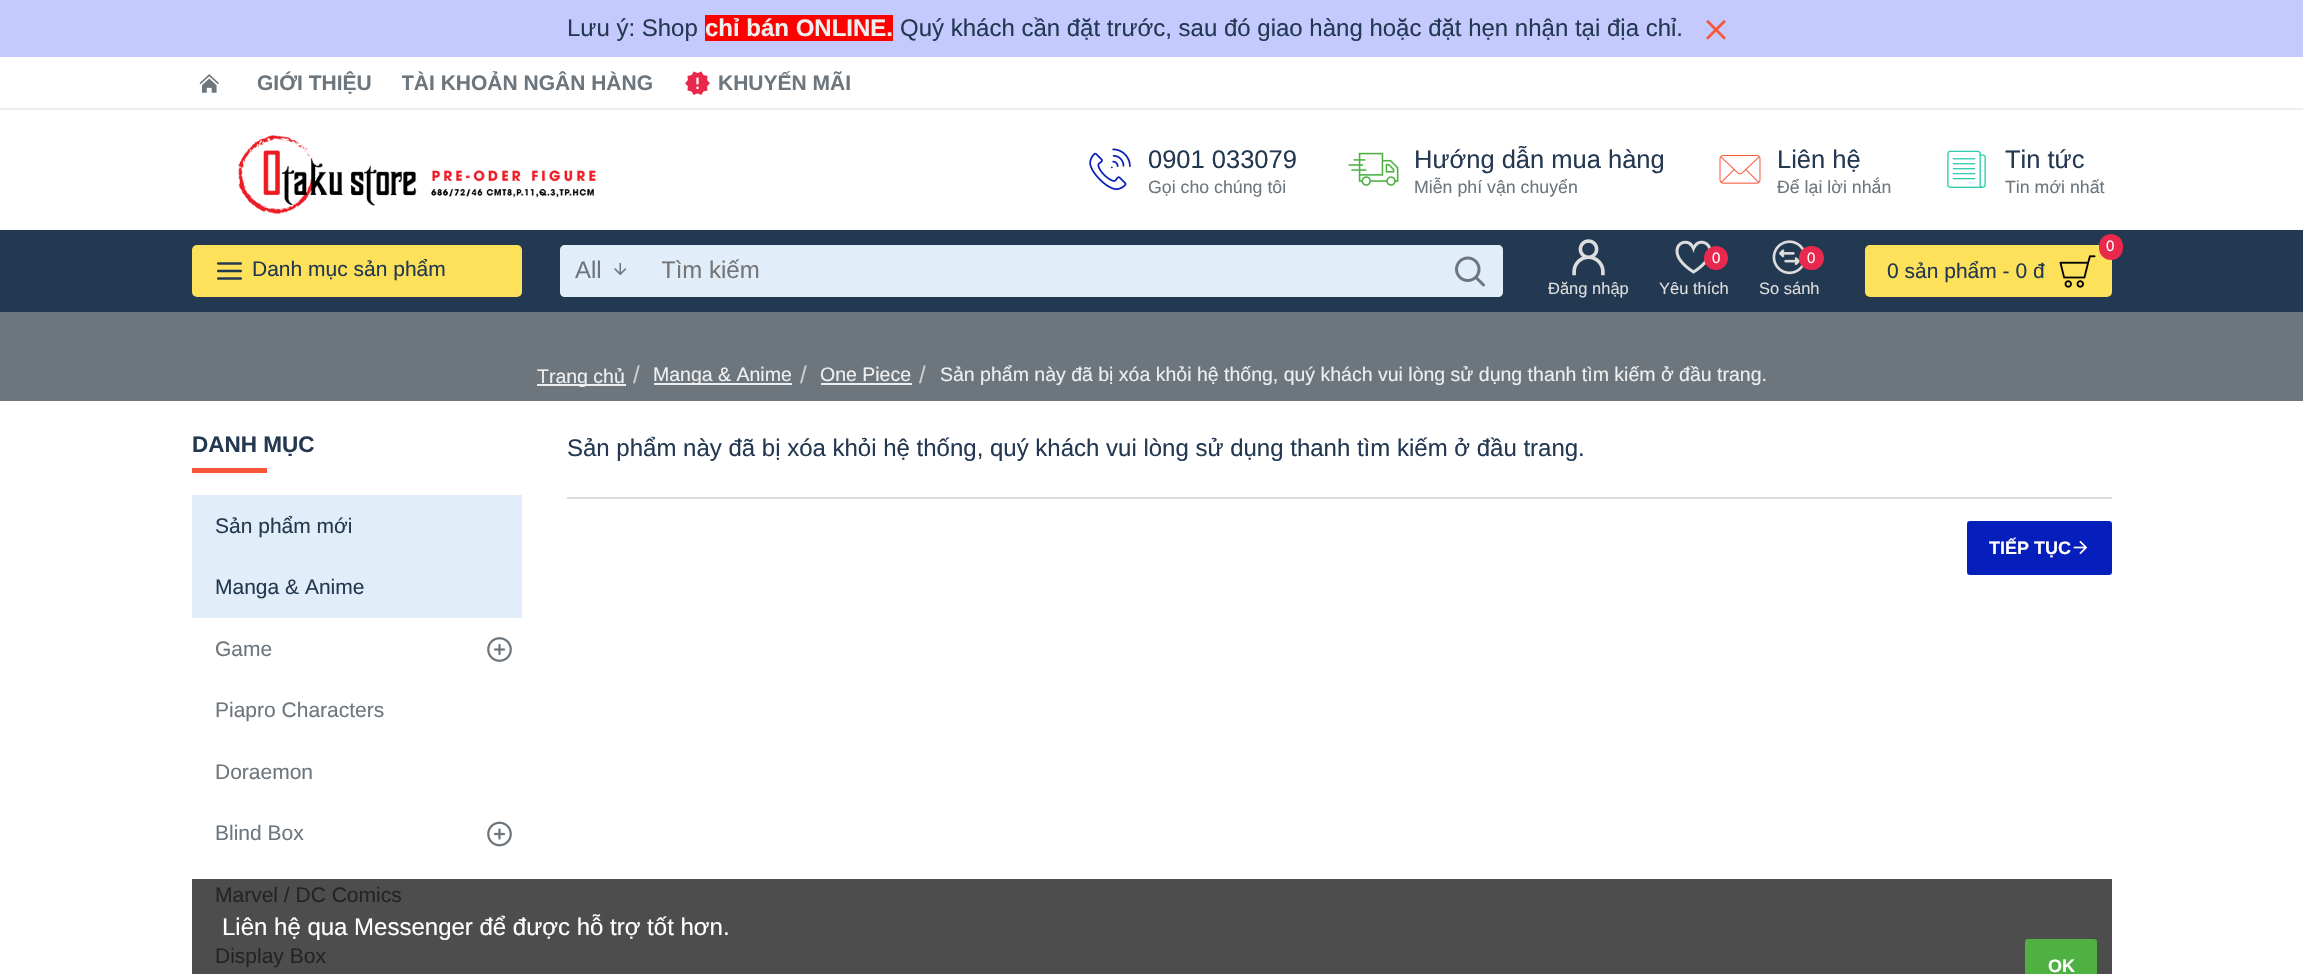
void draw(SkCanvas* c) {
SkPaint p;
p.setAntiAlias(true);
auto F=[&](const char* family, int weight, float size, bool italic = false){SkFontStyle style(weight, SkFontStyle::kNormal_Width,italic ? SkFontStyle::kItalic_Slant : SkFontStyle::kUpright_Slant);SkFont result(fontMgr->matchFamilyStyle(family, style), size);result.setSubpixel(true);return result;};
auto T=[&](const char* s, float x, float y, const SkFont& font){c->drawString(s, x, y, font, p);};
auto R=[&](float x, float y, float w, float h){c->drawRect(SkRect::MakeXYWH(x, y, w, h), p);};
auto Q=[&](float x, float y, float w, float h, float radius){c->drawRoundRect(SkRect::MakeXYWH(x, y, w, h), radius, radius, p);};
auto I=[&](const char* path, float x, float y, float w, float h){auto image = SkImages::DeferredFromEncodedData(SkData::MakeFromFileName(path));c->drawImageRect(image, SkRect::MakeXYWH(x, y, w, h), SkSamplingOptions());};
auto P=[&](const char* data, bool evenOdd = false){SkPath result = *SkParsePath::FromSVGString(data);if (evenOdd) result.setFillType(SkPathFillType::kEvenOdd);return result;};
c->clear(0xffffffff);
p.setColor(0xff4d4d4d);
R(192,879,1920,95);
p.setColor(0xffc4cafd);
R(0,0,2303,57);
auto f1 = F("Liberation Sans",400,24);
p.setColor(0xff233851);
T("Lưu ý: Shop",567,36,f1);
p.setColor(0xffff0000);
R(705,15,188,26);
auto f2 = F("Liberation Sans",700,24);
p.setColor(0xffefefef);
T("chỉ bán ONLINE.",705,36,f2);
p.setColor(0xff233851);
T("Quý khách cần đặt trước, sau đó giao hàng hoặc đặt hẹn nhận tại địa chỉ.",900,36,f1);
I("1.png",1706,20,20,20);
I("2.png",199,74,20,19);
auto f3 = F("Liberation Sans",700,21);
p.setColor(0xff6d767d);
T("GIỚI THIỆU",257,90,f3);
c->save();
c->clipRect(SkRect::MakeXYWH(402,68,252,31));
T("TÀI KHOẢN NGÂN HÀNG",401,90,f3);
c->restore();
I("3.png",685,71,25,24);
T("KHUYẾN MÃI",718,90,f3);
I("4.png",238,135,358,79);
I("5.png",1089,148,42,43);
auto f4 = F("Liberation Sans",400,25.5);
p.setColor(0xff233851);
T("0901 033079",1148,168,f4);
auto f5 = F("Liberation Sans",400,17.75);
p.setColor(0xff6d767d);
T("Gọi cho chúng tôi",1148,193,f5);
I("6.png",1348,152,51,34);
p.setColor(0xff233851);
T("Hướng dẫn mua hàng",1414,168,f4);
p.setColor(0xff6d767d);
T("Miễn phí vận chuyển",1414,193,f5);
I("7.png",1719,155,42,29);
p.setColor(0xff233851);
T("Liên hệ",1777,168,f4);
p.setColor(0xff6d767d);
T("Để lại lời nhắn",1777,193,f5);
I("8.png",1947,150,39,38);
p.setColor(0xff233851);
T("Tin tức",2005,168,f4);
p.setColor(0xff6d767d);
T("Tin mới nhất",2005,193,f5);
p.setColor(0xff233851);
R(0,230,2303,82);
p.setColor(0xfffee15b);
Q(192,245,330,52,5);
I("9.png",217,262,25,18);
auto f6 = F("Liberation Sans",400,21);
p.setColor(0xff233851);
T("Danh mục sản phẩm",252,276,f6);
p.setColor(0xffe1eefa);
c->drawPath(P("M565 245h79v52h-79c-3 0-5-2-5-5v-42c0-3 2-5 5-5z"),p);
p.setColor(0xff6d767d);
T("All",575,278,f1);
I("10.png",614,262,13,14);
p.setColor(0xffe1eefa);
R(644,245,792,52);
c->save();
c->clipRect(SkRect::MakeXYWH(662,258,756,27));
p.setColor(0xff757575);
T("Tìm kiếm",661,278,f1);
c->restore();
p.setColor(0xffe1eefa);
c->drawPath(P("M1436 245h62c3 0 5 2 5 5v42c0 3-2 5-5 5h-62z"),p);
I("11.png",1455,256,30,31);
I("12.png",1572,239,33,37);
auto f7 = F("Liberation Sans",400,16.5);
p.setColor(0xffdddddd);
T("Đăng nhập",1548,294,f7);
I("13.png",1675,240,36,34);
p.setColor(0xffe8284d);
c->drawCircle(1716,258,12,p);
auto f8 = F("Liberation Sans",400,15);
p.setColor(0xffffffff);
T("0",1712,263,f8);
p.setColor(0xffdddddd);
T("Yêu thích",1659,294,f7);
I("14.png",1772,240,33,35);
p.setColor(0xffe8284d);
Q(1799,246,25,24,12);
p.setColor(0xffffffff);
T("0",1807,263,f8);
p.setColor(0xffdddddd);
T("So sánh",1759,294,f7);
p.setColor(0xfffee15b);
Q(1865,245,247,52,5);
p.setColor(0xffe8284d);
Q(2099,234,24,26,12);
p.setColor(0xffffffff);
T("0",2106,251,f8);
p.setColor(0xff233851);
T("0 sản phẩm - 0 đ",1887,278,f6);
I("15.png",2059,255,37,33);
p.setColor(0xffeeeeee);
R(0,108,2303,2);
p.setColor(0xff6d767d);
R(0,312,2303,89);
p.setColor(0xffeeeeee);
R(537,384,89,2);
auto f9 = F("Liberation Sans",400,19.5);
p.setColor(0xffefefef);
T("Trang chủ",537,383,f9);
p.setColor(0xffcccccc);
T("/",633,383,f1);
p.setColor(0xffeeeeee);
R(654,383,138,2);
p.setColor(0xffefefef);
T("Manga & Anime",653,381,f9);
p.setColor(0xffcccccc);
T("/",800,383,f1);
p.setColor(0xffefefef);
T("One Piece",820,381,f9);
p.setColor(0xffeeeeee);
R(821,383,91,2);
p.setColor(0xffcccccc);
T("/",919,383,f1);
p.setColor(0xffefefef);
T("Sản phẩm này đã bị xóa khỏi hệ thống, quý khách vui lòng sử dụng thanh tìm kiếm ở đầu trang.",940,381,f9);
auto f10 = F("Liberation Sans",700,22.5);
p.setColor(0xff233851);
T("DANH MỤC",192,452,f10);
p.setColor(0xfff85639);
R(192,468,75,5);
p.setColor(0xffe1eefa);
R(192,495,330,123);
p.setColor(0xff233851);
T("Sản phẩm mới",215,533,f6);
T("Manga & Anime",215,594,f6);
p.setColor(0xff6d767d);
T("Game",215,656,f6);
I("16.png",487,637,25,25);
T("Piapro Characters",215,717,f6);
T("Doraemon",215,779,f6);
T("Blind Box",215,840,f6);
I("17.png",487,821,25,26);
p.setColor(0xff212326);
T("Marvel / DC Comics",215,902,f6);
T("Display Box",215,963,f6);
p.setColor(0xff233851);
T("Sản phẩm này đã bị xóa khỏi hệ thống, quý khách vui lòng sử dụng thanh tìm kiếm ở đầu trang.",567,456,f1);
p.setColor(0xffdddddd);
R(567,497,1545,2);
p.setColor(0xff061ebb);
Q(1967,521,145,54,3);
auto f11 = F("Liberation Sans",700,18);
p.setColor(0xffffffff);
T("TIẾP TỤC",1989,554,f11);
I("18.png",2073,540,15,15);
T("Liên hệ qua Messenger để được hỗ trợ tốt hơn.",222,935,f1);
p.setColor(0xff4eb142);
Q(2025,939,72,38,3);
p.setColor(0xffffffff);
T("OK",2048,972,f11);
}
